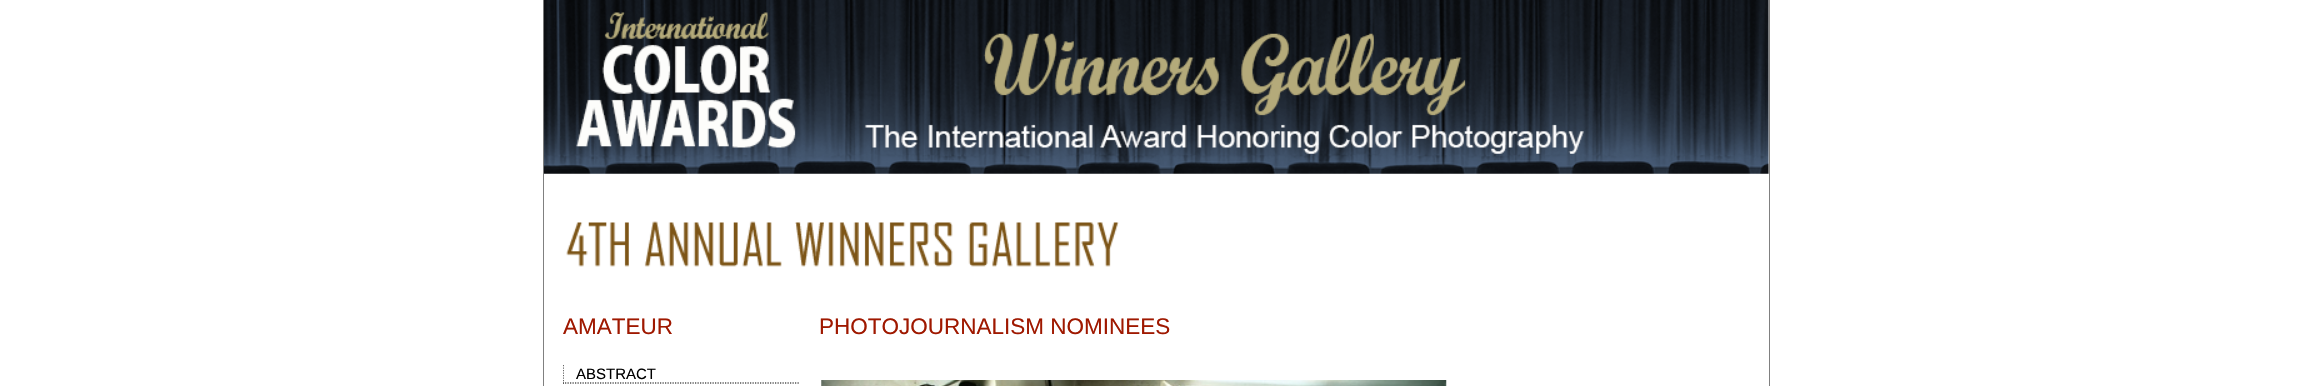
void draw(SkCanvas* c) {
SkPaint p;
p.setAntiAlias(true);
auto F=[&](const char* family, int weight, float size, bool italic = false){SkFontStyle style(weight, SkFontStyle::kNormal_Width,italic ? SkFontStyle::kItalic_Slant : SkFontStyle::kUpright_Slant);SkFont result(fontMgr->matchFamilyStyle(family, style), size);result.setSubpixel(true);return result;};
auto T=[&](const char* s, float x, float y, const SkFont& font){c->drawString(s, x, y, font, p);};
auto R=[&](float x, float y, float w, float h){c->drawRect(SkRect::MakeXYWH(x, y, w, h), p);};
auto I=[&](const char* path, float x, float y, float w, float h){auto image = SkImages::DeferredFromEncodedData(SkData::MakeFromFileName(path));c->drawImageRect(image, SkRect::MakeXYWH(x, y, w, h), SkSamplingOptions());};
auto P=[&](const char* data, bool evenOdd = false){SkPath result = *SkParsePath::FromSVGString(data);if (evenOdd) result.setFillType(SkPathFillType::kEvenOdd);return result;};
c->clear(0xffffffff);
p.setColor(0xff808080);
R(1769,0,1,386);
R(543,0,1,386);
I("1.png",543,0,1226,174);
I("2.png",566,221,553,46);
auto f1 = F("Liberation Sans",400,22.5);
p.setColor(0xff9f1800);
T("AMATEUR",563,334,f1);
c->save();
c->clipRect(SkRect::MakeXYWH(563,295,237,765));
p.setStroke(true);
p.setStrokeWidth(1.2);
p.setColor(0xff000000);
p.setPathEffect(SkDashPathEffect::Make({{1.25f,1.25f}}, 0));
c->drawPath(P("M562.5 383h238.5"),p);
p.setPathEffect(nullptr);
p.setPathEffect(SkDashPathEffect::Make({{1.25f,1.25f}}, 0));
c->drawPath(P("M563 365v19"),p);
p.setPathEffect(nullptr);
c->restore();
auto f2 = F("Liberation Sans",400,15);
p.setStroke(false);
T("ABSTRACT",576,379,f2);
p.setColor(0xff9f1800);
T("PHOTOJOURNALISM NOMINEES",819,334,f1);
I("3.png",821,380,626,6);
}
